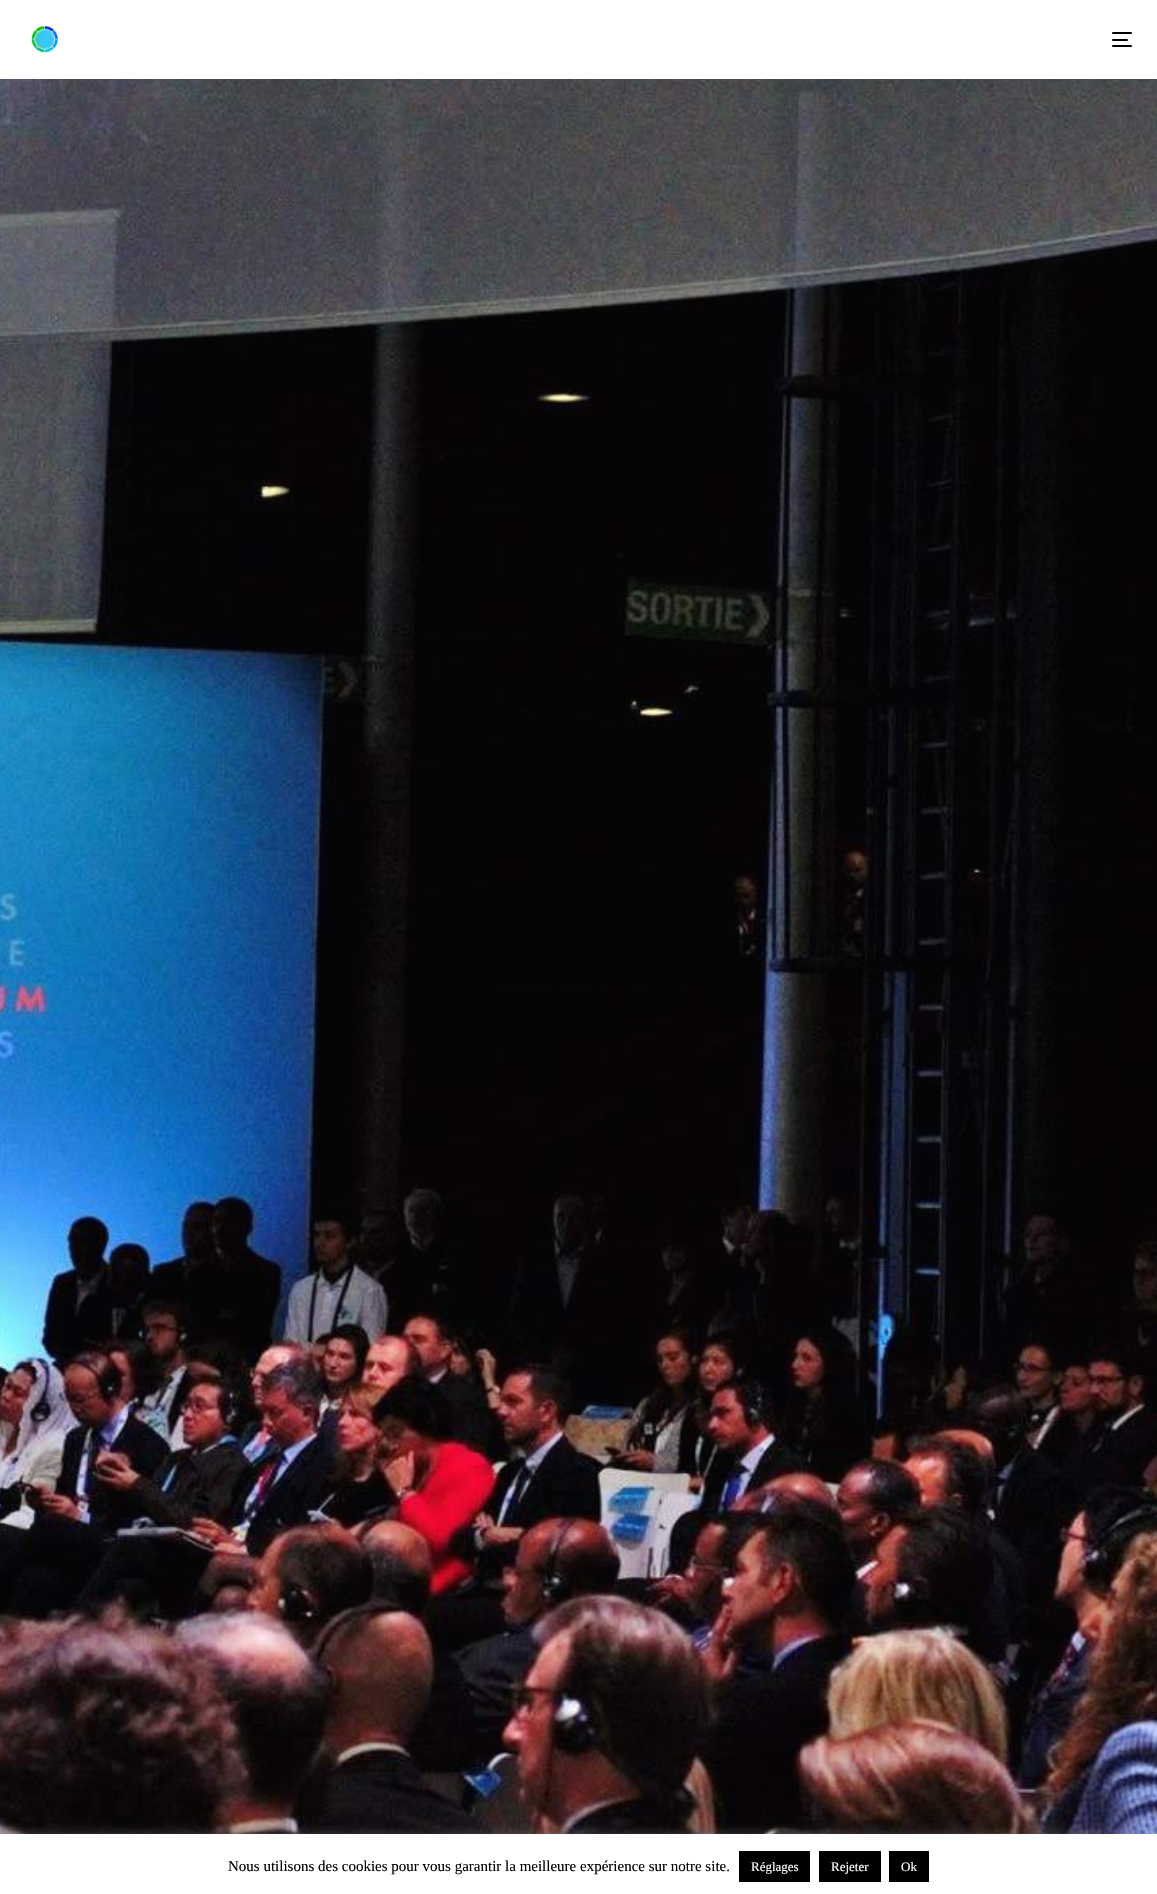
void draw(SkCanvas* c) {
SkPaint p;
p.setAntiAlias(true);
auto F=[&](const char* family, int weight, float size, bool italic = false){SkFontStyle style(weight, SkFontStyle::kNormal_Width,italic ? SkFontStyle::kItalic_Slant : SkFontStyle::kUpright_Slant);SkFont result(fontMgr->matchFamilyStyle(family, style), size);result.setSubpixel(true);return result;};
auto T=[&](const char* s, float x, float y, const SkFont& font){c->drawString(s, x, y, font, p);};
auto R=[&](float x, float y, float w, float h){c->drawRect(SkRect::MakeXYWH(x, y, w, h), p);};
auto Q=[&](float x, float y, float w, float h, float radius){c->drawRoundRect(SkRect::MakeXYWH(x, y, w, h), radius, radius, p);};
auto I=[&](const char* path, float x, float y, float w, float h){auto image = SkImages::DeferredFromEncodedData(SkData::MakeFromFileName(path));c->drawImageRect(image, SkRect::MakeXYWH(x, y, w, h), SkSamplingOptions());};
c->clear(0xffffffff);
I("1.png",31,26,28,27);
p.setColor(0xff000000);
Q(1112,32,20,2,1);
Q(1112,39,16,2,1);
Q(1112,45,20,2,1);
I("2.png",0,79,1157,1755);
p.setColor(0x4dacabab);
p.setMaskFilter(SkMaskFilter::MakeBlur(kNormal_SkBlurStyle, 5));
c->drawRect(SkRect::MakeXYWH(0,1833,1157,60),p);
p.setMaskFilter(nullptr);
p.setColor(0xffffffff);
R(0,1834,1157,60);
auto f1 = F("Liberation Serif",400,15);
p.setColor(0xff000000);
T("Nous utilisons des cookies pour vous garantir la meilleure expérience sur notre site.",228,1871,f1);
R(739,1851,71,31);
auto f2 = F("Liberation Serif",400,13);
p.setColor(0xffffffff);
T("Réglages",751,1871,f2);
p.setColor(0xff000000);
R(819,1851,62,31);
p.setColor(0xffffffff);
T("Rejeter",831,1871,f2);
p.setColor(0xff000000);
R(889,1851,40,31);
p.setColor(0xffffffff);
T("Ok",901,1871,f2);
}
